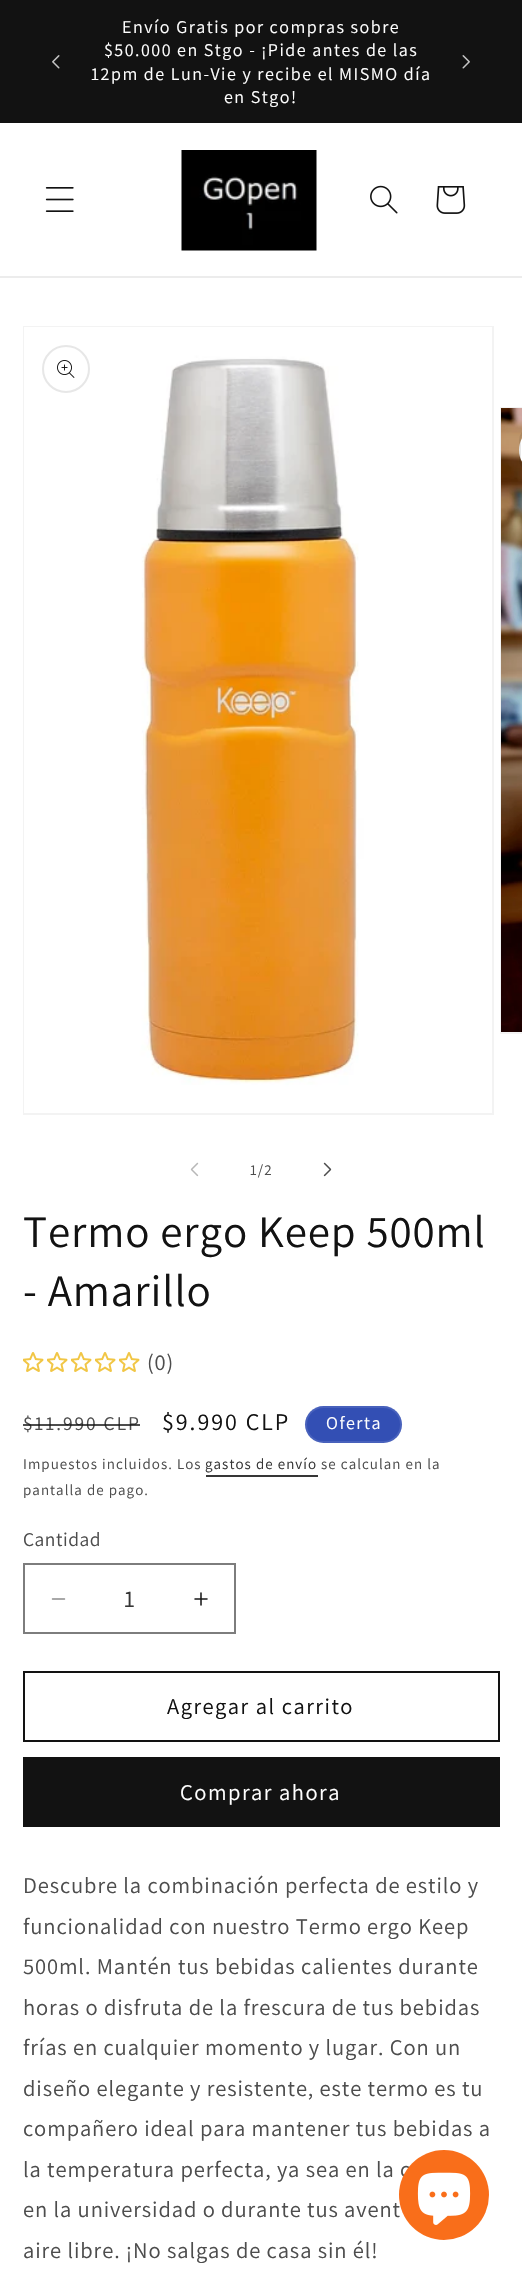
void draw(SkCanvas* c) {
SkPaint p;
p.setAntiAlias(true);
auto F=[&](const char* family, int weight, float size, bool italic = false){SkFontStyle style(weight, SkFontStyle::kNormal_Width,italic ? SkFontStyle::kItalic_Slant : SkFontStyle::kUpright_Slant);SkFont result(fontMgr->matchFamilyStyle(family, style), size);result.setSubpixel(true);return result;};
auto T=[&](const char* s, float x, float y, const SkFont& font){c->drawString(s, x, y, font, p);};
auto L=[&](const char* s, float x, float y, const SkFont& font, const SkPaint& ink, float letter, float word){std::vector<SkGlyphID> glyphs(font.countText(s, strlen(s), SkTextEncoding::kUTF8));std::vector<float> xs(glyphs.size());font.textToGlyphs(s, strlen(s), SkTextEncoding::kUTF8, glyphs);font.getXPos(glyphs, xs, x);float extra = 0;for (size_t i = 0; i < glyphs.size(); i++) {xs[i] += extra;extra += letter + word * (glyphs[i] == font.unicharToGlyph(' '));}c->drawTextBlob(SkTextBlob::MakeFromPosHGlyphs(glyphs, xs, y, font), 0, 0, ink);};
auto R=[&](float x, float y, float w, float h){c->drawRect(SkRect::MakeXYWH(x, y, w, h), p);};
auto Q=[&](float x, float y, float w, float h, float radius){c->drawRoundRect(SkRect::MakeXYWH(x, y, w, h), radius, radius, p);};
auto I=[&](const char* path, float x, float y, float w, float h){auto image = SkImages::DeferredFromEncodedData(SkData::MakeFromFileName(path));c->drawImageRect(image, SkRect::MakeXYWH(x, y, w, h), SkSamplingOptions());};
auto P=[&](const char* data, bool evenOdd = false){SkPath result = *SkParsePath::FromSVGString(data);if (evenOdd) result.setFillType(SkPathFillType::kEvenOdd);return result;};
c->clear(0xffffffff);
p.setColor(0xff121212);
R(0,0,522,123);
I("1.png",52,55,8,14);
auto f1 = F("Assistant",400,18);
p.setColor(0xffffffff);
L("Envío Gratis por compras sobre",122,33,f1,p,1.5,0);
L("$50.000 en Stgo - ¡Pide antes de las",104,56,f1,p,1.5,0);
L("12pm de Lun-Vie y recibe el MISMO día",91,80,f1,p,1.5,0);
L("en Stgo!",224,103,f1,p,1.5,0);
I("2.png",462,55,8,14);
p.setColor(0xffececec);
R(0,276,522,2);
I("3.png",45,187,29,25);
I("4.png",181,150,136,101);
I("5.png",370,185,28,29);
I("6.png",436,186,30,28);
p.setStroke(true);
p.setStrokeWidth(2);
p.setColor(0xfff3f3f3);
c->drawRect(SkRect::MakeXYWH(24,327,469,787),p);
I("7.png",24,327,468,786);
p.setColor(0xffe7e7e7);
c->drawCircle(66,369,23,p);
I("8.png",57,360,18,18);
p.setColor(0xfff3f3f3);
c->drawRect(SkRect::MakeXYWH(501,408,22,625),p);
I("9.png",501,408,21,624);
p.setStroke(false);
p.setColor(0xffffffff);
c->drawPath(P("M543 426h-21v48h21c-13.5 0-24-10.5-24-24c0-13.5 10.5-24 24-24z"),p);
p.setStroke(true);
p.setColor(0x1a121212);
c->drawRoundRect(SkRect::MakeXYWH(520,427,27,46),23,23,p);
I("10.png",190,1162,9,15);
auto f2 = F("Assistant",400,15);
p.setStroke(false);
p.setColor(0xff4d4d4d);
L("1/2",250,1175,f2,p,1.05,0);
I("11.png",323,1162,9,15);
auto f3 = F("Assistant",400,45);
p.setColor(0xff121212);
L("Termo ergo Keep 500ml",23,1247,f3,p,.9,0);
L("- Amarillo",23,1306,f3,p,.9,0);
I("12.png",23,1352,21,20);
I("12.png",47,1352,21,20);
I("12.png",71,1352,21,20);
I("12.png",95,1352,21,20);
I("12.png",119,1352,21,20);
auto f4 = F("Assistant",400,22.5);
p.setColor(0xff4d4d4d);
L("(0)",147,1370,f4,p,.9,0);
auto f5 = F("Assistant",400,19.5);
L("$11.990 CLP",23,1430,f5,p,2,0);
p.setColor(0xbf121212);
R(23,1424,117,2);
auto f6 = F("Assistant",400,24);
p.setColor(0xff121212);
L("$9.990 CLP",162,1430,f6,p,2,0);
p.setColor(0xff334fb4);
Q(305,1406,97,37,18.5);
p.setStroke(true);
p.setColor(0x1affffff);
c->drawRoundRect(SkRect::MakeXYWH(306,1407,95,35),17.5,17.5,p);
p.setStroke(false);
p.setColor(0xffffffff);
L("Oferta",326,1429,f1,p,1.5,0);
p.setColor(0xff4d4d4d);
L("Impuestos incluidos. Los",23,1469,f2,p,1.05,0);
p.setColor(0xff363636);
L("gastos de envío",205,1469,f2,p,1.05,0);
R(206,1475,112,2);
p.setColor(0xff4d4d4d);
L("se calculan en la",321,1469,f2,p,1.05,0);
L("pantalla de pago.",23,1495,f2,p,1.05,0);
L("Cantidad",23,1546,f5,p,.5,0);
I("13.png",51,1598,15,2);
I("14.png",194,1592,14,14);
p.setStroke(true);
p.setColor(0xff7d7d7d);
c->drawRect(SkRect::MakeXYWH(24,1564,211,69),p);
p.setStroke(false);
p.setColor(0xff363636);
T("1",124,1607,f6);
p.setStroke(true);
p.setColor(0xff121212);
c->drawRect(SkRect::MakeXYWH(24,1672,475,69),p);
p.setStroke(false);
L("Agregar al carrito",167,1714,f4,p,1.5,0);
R(23,1757,477,70);
p.setColor(0xffffffff);
L("Comprar ahora",180,1800,f4,p,1.5,0);
p.setColor(0xff4d4d4d);
L("Descubre la combinación perfecta de estilo y",23,1893,f4,p,.9,0);
L("funcionalidad con nuestro Termo ergo Keep",23,1934,f4,p,.9,0);
L("500ml. Mantén tus bebidas calientes durante",23,1974,f4,p,.9,0);
L("horas o disfruta de la frescura de tus bebidas",23,2015,f4,p,.9,0);
L("frías en cualquier momento y lugar. Con un",23,2055,f4,p,.9,0);
L("diseño elegante y resistente, este termo es tu",23,2096,f4,p,.9,0);
L("compañero ideal para mantener tus bebidas a",23,2136,f4,p,.9,0);
L("la temperatura perfecta, ya sea en la o",23,2177,f4,p,.9,0);
L("en la universidad o durante tus avent",23,2217,f4,p,.9,0);
L("aire libre. ¡No salgas de casa sin él!",23,2258,f4,p,.9,0);
p.setColor(0xfff96e1a);
c->drawCircle(444,2195,45,p);
I("15.png",417,2172,54,53);
}
